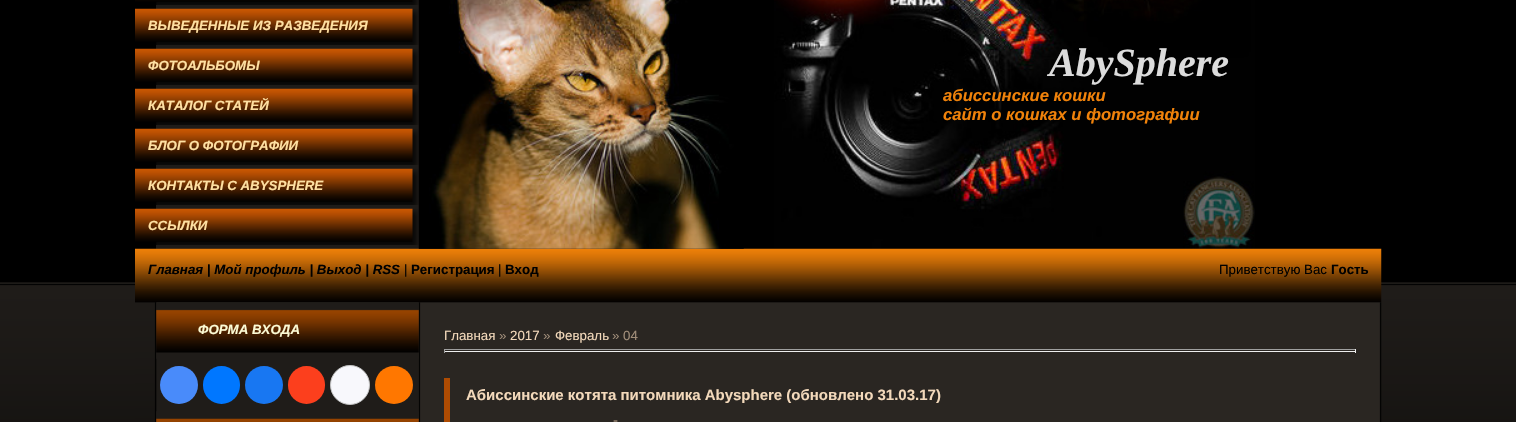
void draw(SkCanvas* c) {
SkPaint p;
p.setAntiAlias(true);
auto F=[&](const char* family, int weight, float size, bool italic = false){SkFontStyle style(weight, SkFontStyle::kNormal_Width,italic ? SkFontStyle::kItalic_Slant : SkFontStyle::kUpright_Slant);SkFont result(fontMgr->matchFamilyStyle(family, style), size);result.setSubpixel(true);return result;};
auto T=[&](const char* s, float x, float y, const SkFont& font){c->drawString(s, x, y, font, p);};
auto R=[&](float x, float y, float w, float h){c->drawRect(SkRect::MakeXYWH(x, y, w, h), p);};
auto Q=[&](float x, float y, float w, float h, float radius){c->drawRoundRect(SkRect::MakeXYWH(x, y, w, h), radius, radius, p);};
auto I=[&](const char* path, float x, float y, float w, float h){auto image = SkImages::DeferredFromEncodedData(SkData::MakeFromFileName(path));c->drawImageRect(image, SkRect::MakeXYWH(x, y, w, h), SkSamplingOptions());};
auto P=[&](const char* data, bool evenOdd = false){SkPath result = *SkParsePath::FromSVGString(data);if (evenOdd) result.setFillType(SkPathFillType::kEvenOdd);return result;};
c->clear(0xff000000);
p.setColor(0xff1f1c19);
R(156,0,263,249);
I("1.png",135,0,284,5);
I("2.png",135,8,284,37);
auto f1 = F("Liberation Sans",700,13.3,true);
p.setColor(0xffffe0a2);
T("ВЫВЕДЕННЫЕ ИЗ РАЗВЕДЕНИЯ",148,30,f1);
I("2.png",135,48,284,37);
T("ФОТОАЛЬБОМЫ",148,70,f1);
I("3.png",135,88,284,37);
T("КАТАЛОГ СТАТЕЙ",148,110,f1);
I("2.png",135,128,284,37);
T("БЛОГ О ФОТОГРАФИИ",148,150,f1);
I("2.png",135,168,284,37);
T("КОНТАКТЫ С ABYSPHERE",148,190,f1);
I("2.png",135,208,284,37);
T("ССЫЛКИ",148,230,f1);
I("5.png",774,0,481,249);
I("6.png",0,248,1516,174);
I("7.png",135,248,1247,55);
I("4.png",418,0,326,249);
auto f2 = F("Liberation Serif",700,40,true);
p.setColor(0xffdcdcdc);
T("AbySphere",1049,76,f2);
auto f3 = F("Liberation Sans",700,16.7,true);
p.setColor(0xfff0820a);
T("абиссинские кошки",943,101,f3);
T("сайт о кошках и фотографии",943,120,f3);
p.setColor(0xff000000);
T("Главная | Мой профиль | Выход | RSS",148,274,f1);
auto f4 = F("Liberation Sans",400,13.3);
T("|",404,274,f4);
auto f5 = F("Liberation Sans",700,13.3);
T("Регистрация",411,274,f5);
T("|",498,274,f4);
T("Вход",505,274,f5);
T("Приветствую Вас",1219,274,f4);
T("Гость",1331,274,f5);
I("8.png",135,302,1247,120);
I("9.png",135,302,284,120);
I("10.png",156,302,263,57);
p.setColor(0xfffcfbd5);
T("ФОРМА ВХОДА",198,334,f1);
p.setColor(0xff498bfa);
c->drawCircle(179,385,19,p);
p.setColor(0xff0077ff);
Q(203,366,37,38,18.5);
p.setColor(0xff1877f2);
c->drawCircle(264,385,19,p);
p.setColor(0xfffc3f1d);
Q(288,366,37,38,18.5);
p.setColor(0xfff8f8fc);
c->drawCircle(350,385,19.5,p);
p.setStroke(true);
p.setStrokeWidth(1);
p.setColor(0xffc4c4c4);
c->drawCircle(350,385,19.5,p);
p.setStroke(false);
p.setColor(0xffff7700);
c->drawCircle(394,385,19,p);
I("11.png",156,411,263,11);
p.setColor(0xfff3d9bb);
T("Главная",444,340,f4);
p.setColor(0xffa08d79);
T("»",499,340,f4);
p.setColor(0xfff3d9bb);
T("2017",510,340,f4);
p.setColor(0xffa08d79);
T("»",543,340,f4);
p.setColor(0xfff3d9bb);
T("Февраль",555,340,f4);
p.setColor(0xffa08d79);
T("» 04",612,340,f4);
p.setColor(0xff9f9f9f);
R(444,349,912,1);
p.setColor(0xffeeeeee);
R(1355,349,1,4);
R(444,351,912,1);
p.setColor(0xff9f9f9f);
R(444,349,1,4);
p.setColor(0xffae4b02);
c->drawPath(P("M444 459v-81h6v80z"),p);
auto f6 = F("Liberation Sans",700,15);
p.setColor(0xfff3d9bb);
T("Абиссинские котята питомника Abysphere (обновлено 31.03.17)",466,400,f6);
auto f7 = F("Liberation Sans",400,15);
p.setColor(0xffa08d79);
T("-",613,425,f7);
}
